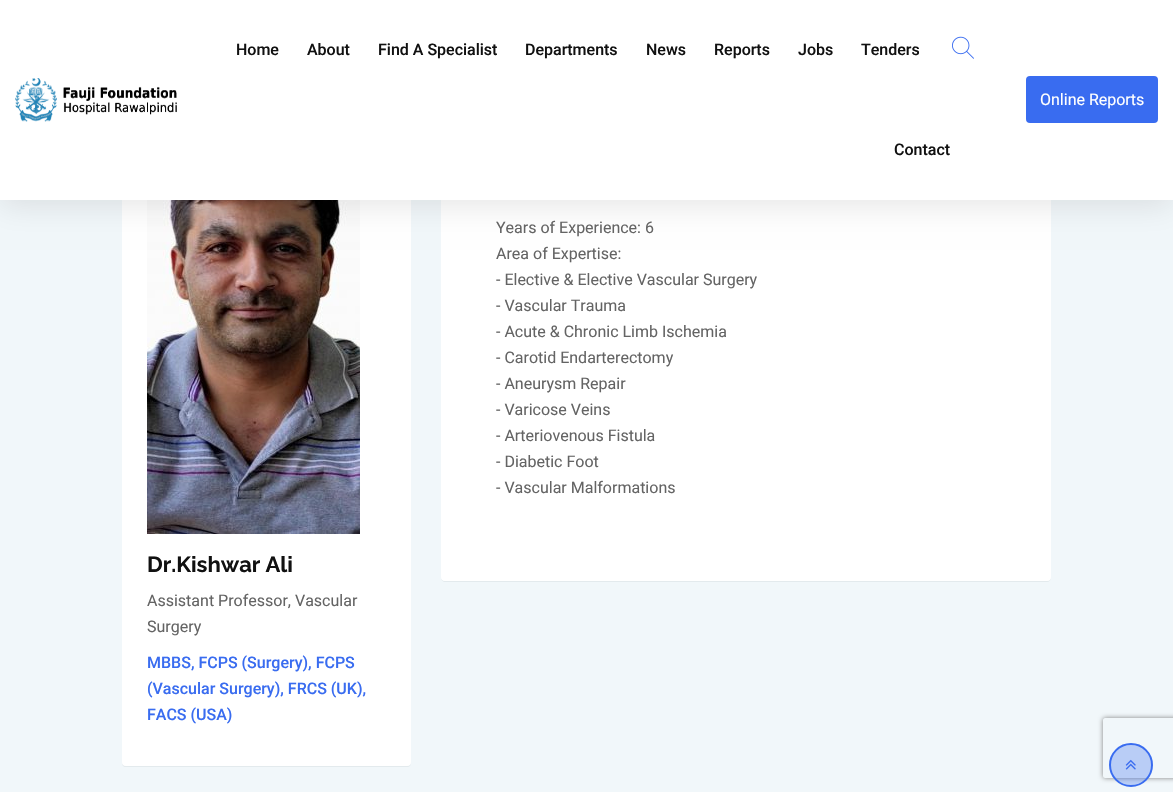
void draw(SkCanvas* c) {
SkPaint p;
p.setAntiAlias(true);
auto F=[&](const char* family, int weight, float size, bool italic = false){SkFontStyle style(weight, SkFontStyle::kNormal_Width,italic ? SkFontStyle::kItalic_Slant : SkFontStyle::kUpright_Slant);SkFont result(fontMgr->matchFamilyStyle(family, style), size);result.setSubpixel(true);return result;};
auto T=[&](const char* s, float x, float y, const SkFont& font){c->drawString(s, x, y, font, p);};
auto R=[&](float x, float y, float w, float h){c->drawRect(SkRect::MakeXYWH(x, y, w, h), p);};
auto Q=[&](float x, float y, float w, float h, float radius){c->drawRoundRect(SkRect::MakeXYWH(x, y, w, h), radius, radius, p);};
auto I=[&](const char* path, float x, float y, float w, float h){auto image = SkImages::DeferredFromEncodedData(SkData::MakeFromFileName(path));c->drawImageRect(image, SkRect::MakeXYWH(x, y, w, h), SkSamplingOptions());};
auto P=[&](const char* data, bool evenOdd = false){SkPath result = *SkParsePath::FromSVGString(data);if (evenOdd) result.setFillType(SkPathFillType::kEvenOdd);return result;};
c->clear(0xfff1f7fa);
p.setColor(0xffe3eaed);
c->drawPath(P("M441 577v1c0 2 2 4 4 4h602c2 0 4-2 4-4v-1c0 2-2 4-4 4h-602c-2 0-4-2-4-4z"),p);
p.setColor(0xffffffff);
Q(441,82,610,499,4);
p.setColor(0xffe3eaed);
c->drawPath(P("M122 762c0 3 1 5 4 5h281c3 0 4-2 4-5c0 2-2 4-4 4h-281c-2 0-4-2-4-4z"),p);
p.setColor(0xffffffff);
Q(122,82,289,684,4);
I("3.png",147,200,213,334);
p.setColor(0x1a000000);
p.setMaskFilter(SkMaskFilter::MakeBlur(kNormal_SkBlurStyle, 15));
c->drawRect(SkRect::MakeXYWH(0,5,1173,200),p);
p.setMaskFilter(nullptr);
p.setColor(0xffffffff);
R(0,0,1173,200);
I("1.png",15,78,162,44);
auto f1 = F("Roboto",500,16);
p.setColor(0xff111111);
T("Home",236,55,f1);
T("About",307,55,f1);
T("Find A Specialist",378,55,f1);
T("Departments",525,55,f1);
T("News",646,55,f1);
T("Reports",714,55,f1);
T("Jobs",798,55,f1);
T("Tenders",861,55,f1);
T("Contact",894,155,f1);
I("2.png",952,36,22,23);
p.setColor(0xff396cf0);
Q(1026,76,132,47,4);
auto f2 = F("Roboto",400,16);
p.setColor(0xffffffff);
T("Online Reports",1040,105,f2);
p.setColor(0xff646464);
T("Years of Experience: 6",496,233,f2);
T("Area of Expertise:",496,259,f2);
T("- Elective & Elective Vascular Surgery",496,285,f2);
T("- Vascular Trauma",496,311,f2);
T("- Acute & Chronic Limb Ischemia",496,337,f2);
T("- Carotid Endarterectomy",496,363,f2);
T("- Aneurysm Repair",496,389,f2);
T("- Varicose Veins",496,415,f2);
T("- Arteriovenous Fistula",496,441,f2);
T("- Diabetic Foot",496,467,f2);
T("- Vascular Malformations",496,493,f2);
auto f3 = F("Raleway",700,22);
p.setColor(0xff111111);
T("Dr.Kishwar Ali",147,572,f3);
p.setColor(0xff646464);
T("Assistant Professor, Vascular",147,606,f2);
T("Surgery",147,632,f2);
p.setColor(0xff396cf0);
T("MBBS, FCPS (Surgery), FCPS",147,668,f1);
T("(Vascular Surgery), FRCS (UK),",147,694,f1);
T("FACS (USA)",147,720,f1);
c->save();
c->clipPath(P("M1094 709h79v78h-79zm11 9h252c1 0 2 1 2 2v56c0 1-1 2-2 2h-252c-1 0-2-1-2-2v-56c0-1 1-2 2-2z",true),true);
p.setColor(0xff808080);
p.setMaskFilter(SkMaskFilter::MakeBlur(kNormal_SkBlurStyle, 2.5));
c->drawRoundRect(SkRect::MakeXYWH(1103,718,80,60),2,2,p);
p.setMaskFilter(nullptr);
c->restore();
p.setColor(0x4d396cf0);
c->drawCircle(1131,765,21,p);
p.setStroke(true);
p.setStrokeWidth(2);
p.setColor(0xff396cf0);
c->drawCircle(1131,765,21,p);
I("4.png",1125,759,11,11);
}
